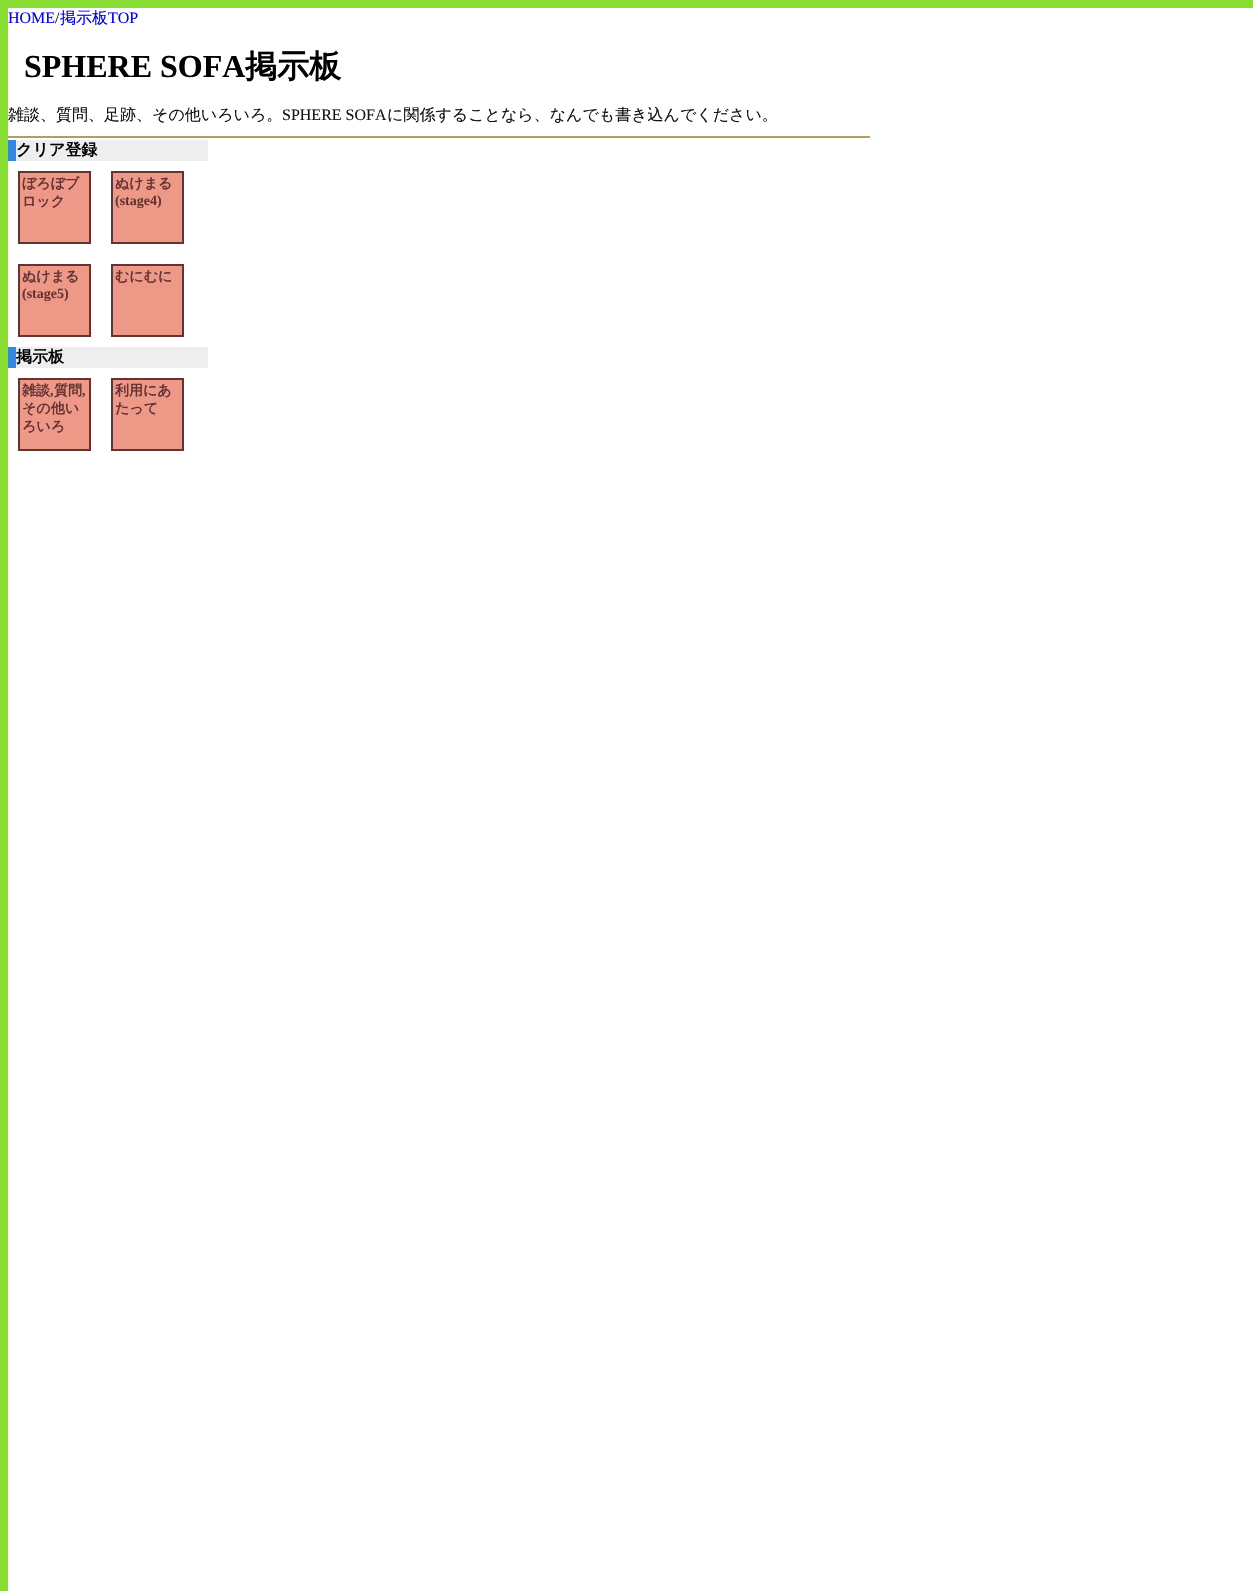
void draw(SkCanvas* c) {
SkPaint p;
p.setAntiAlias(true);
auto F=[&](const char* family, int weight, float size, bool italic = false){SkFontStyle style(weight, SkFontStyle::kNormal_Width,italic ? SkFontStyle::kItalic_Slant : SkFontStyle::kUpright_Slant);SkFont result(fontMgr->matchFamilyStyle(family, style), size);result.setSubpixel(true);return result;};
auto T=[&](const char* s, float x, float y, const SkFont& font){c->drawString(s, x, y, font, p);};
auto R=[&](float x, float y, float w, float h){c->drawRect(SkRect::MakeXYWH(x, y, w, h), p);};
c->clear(0xffffffff);
p.setColor(0xff88dd33);
R(0,0,1253,8);
R(0,0,8,1591);
auto f1 = F("Liberation Serif",400,16);
p.setColor(0xff0000f0);
T("HOME",8,23,f1);
p.setColor(0xff101510);
T("/",55,23,f1);
auto f2 = F("WenQuanYi Zen Hei",500,16);
p.setColor(0xff0000f0);
T("掲示板",60,23,f2);
T("TOP",108,23,f1);
auto f3 = F("Liberation Serif",700,32);
p.setColor(0xff000000);
T("SPHERE SOFA",24,77,f3);
auto f4 = F("WenQuanYi Zen Hei",700,32);
T("掲示板",245,77,f4);
p.setColor(0xff101510);
T("雑談、質問、足跡、その他いろいろ。",8,120,f2);
T("SPHERE SOFA",282,120,f1);
T("に関係することなら、なんでも書き込んでください。",387,120,f2);
p.setColor(0xffbb9966);
R(8,136,862,2);
p.setColor(0xffeeeeee);
R(16,140,192,21);
p.setColor(0xff3388dd);
R(8,140,8,21);
auto f5 = F("WenQuanYi Zen Hei",700,16);
p.setColor(0xff000000);
T("クリア登録",16,155,f5);
p.setColor(0xffee9988);
c->drawRect(SkRect::MakeXYWH(19,172,71,71),p);
p.setStroke(true);
p.setStrokeWidth(2);
p.setColor(0xff663333);
c->drawRect(SkRect::MakeXYWH(19,172,71,71),p);
auto f6 = F("WenQuanYi Zen Hei",700,14);
p.setStroke(false);
T("ぼろぼブ",22,188,f6);
T("ロック",22,206,f6);
p.setColor(0xffee9988);
c->drawRect(SkRect::MakeXYWH(112,172,71,71),p);
p.setStroke(true);
p.setColor(0xff663333);
c->drawRect(SkRect::MakeXYWH(112,172,71,71),p);
p.setStroke(false);
T("ぬけまる",115,188,f6);
auto f7 = F("Liberation Serif",700,14);
T("(stage4)",115,205,f7);
p.setColor(0xffee9988);
c->drawRect(SkRect::MakeXYWH(19,265,71,71),p);
p.setStroke(true);
p.setColor(0xff663333);
c->drawRect(SkRect::MakeXYWH(19,265,71,71),p);
p.setStroke(false);
T("ぬけまる",22,281,f6);
T("(stage5)",22,298,f7);
p.setColor(0xffee9988);
c->drawRect(SkRect::MakeXYWH(112,265,71,71),p);
p.setStroke(true);
p.setColor(0xff663333);
c->drawRect(SkRect::MakeXYWH(112,265,71,71),p);
p.setStroke(false);
T("むにむに",115,281,f6);
p.setColor(0xffeeeeee);
R(16,347,192,21);
p.setColor(0xff3388dd);
R(8,347,8,21);
p.setColor(0xff000000);
T("掲示板",16,362,f5);
p.setColor(0xffee9988);
c->drawRect(SkRect::MakeXYWH(19,379,71,71),p);
p.setStroke(true);
p.setColor(0xff663333);
c->drawRect(SkRect::MakeXYWH(19,379,71,71),p);
p.setStroke(false);
T("雑談",22,395,f6);
T(",",50,395,f7);
T("質問",54,395,f6);
T(",",82,395,f7);
T("その他い",22,413,f6);
T("ろいろ",22,431,f6);
p.setColor(0xffee9988);
c->drawRect(SkRect::MakeXYWH(112,379,71,71),p);
p.setStroke(true);
p.setColor(0xff663333);
c->drawRect(SkRect::MakeXYWH(112,379,71,71),p);
p.setStroke(false);
T("利用にあ",115,395,f6);
T("たって",115,413,f6);
}
